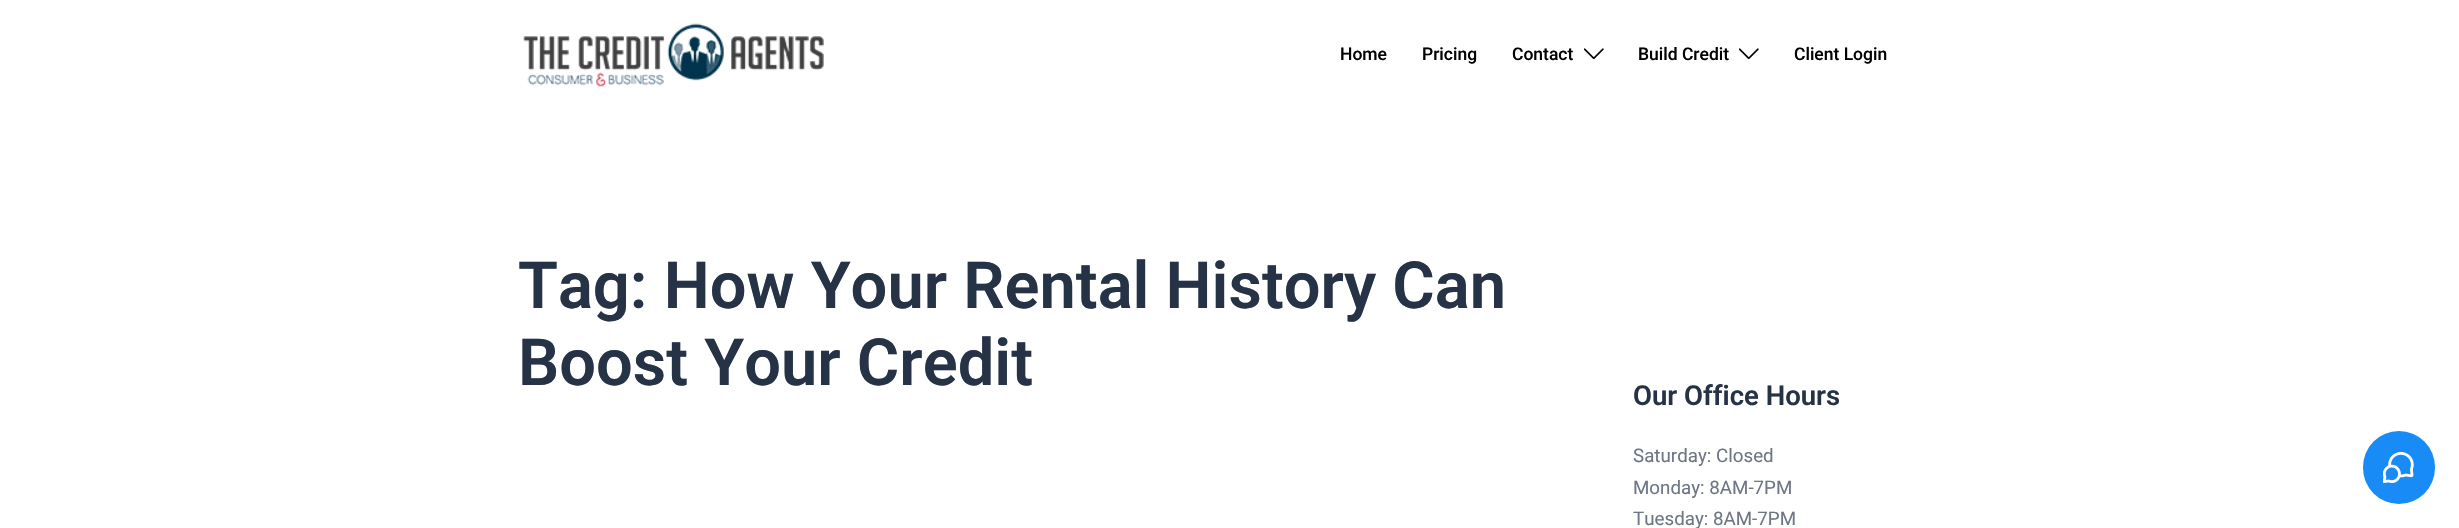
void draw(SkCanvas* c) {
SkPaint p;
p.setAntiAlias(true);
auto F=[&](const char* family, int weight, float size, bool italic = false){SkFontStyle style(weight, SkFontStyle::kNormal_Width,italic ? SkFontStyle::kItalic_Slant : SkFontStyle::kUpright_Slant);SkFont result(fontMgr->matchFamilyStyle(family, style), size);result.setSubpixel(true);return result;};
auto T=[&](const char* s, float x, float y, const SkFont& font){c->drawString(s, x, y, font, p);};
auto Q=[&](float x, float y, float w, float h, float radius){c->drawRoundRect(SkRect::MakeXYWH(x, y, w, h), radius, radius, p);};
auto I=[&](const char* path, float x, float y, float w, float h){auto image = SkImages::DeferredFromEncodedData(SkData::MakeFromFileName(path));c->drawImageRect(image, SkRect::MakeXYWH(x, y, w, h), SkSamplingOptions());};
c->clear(0xffffffff);
I("1.png",523,23,301,64);
auto f1 = F("Roboto",500,17.5);
p.setColor(0xff000000);
T("Home",1340,60,f1);
T("Pricing",1422,60,f1);
T("Contact",1512,60,f1);
I("2.png",1584,48,20,12);
T("Build Credit",1638,60,f1);
I("2.png",1739,48,20,12);
T("Client Login",1794,60,f1);
auto f2 = F("Roboto",600,65);
p.setColor(0xff263246);
T("Tag: How Your Rental History Can",518,308,f2);
T("Boost Your Credit",518,385,f2);
auto f3 = F("Roboto",600,27.5);
T("Our Office Hours",1633,405,f3);
auto f4 = F("Roboto",400,18.75);
p.setColor(0xff6d7685);
T("Saturday: Closed",1633,462,f4);
T("Monday: 8AM-7PM",1633,494,f4);
T("Tuesday: 8AM-7PM",1633,525,f4);
p.setColor(0xff188bf6);
Q(2363,431,72,73,36);
I("3.png",2383,452,31,31);
}
